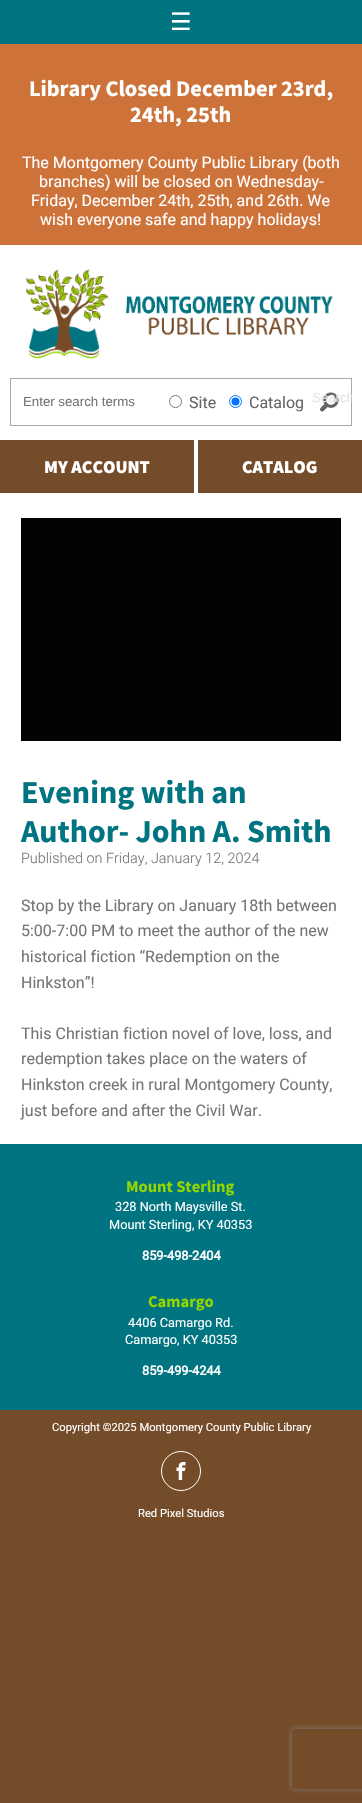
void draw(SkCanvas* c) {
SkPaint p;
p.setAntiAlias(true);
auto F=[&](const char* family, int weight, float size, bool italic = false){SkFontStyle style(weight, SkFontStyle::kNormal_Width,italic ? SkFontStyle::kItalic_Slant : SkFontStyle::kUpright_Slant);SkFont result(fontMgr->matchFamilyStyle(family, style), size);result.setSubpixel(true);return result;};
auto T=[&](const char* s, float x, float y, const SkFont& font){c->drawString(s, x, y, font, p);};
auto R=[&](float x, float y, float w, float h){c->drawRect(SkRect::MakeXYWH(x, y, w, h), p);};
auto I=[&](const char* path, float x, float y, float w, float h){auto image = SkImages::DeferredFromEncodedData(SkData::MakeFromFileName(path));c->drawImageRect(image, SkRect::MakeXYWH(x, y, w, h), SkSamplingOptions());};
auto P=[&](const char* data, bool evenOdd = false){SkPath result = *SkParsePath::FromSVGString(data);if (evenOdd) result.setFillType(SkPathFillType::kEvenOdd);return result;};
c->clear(0xff754c29);
p.setColor(0xff017481);
R(0,0,362,44);
auto f1 = F("DejaVu Sans",400,24);
p.setColor(0xffffffff);
T("☰",170,30,f1);
p.setColor(0xffcd733a);
R(0,44,362,201);
auto f2 = F("Source Sans Pro",700,22.4);
p.setColor(0xffffffff);
T("Library Closed December 23rd,",29,96,f2);
T("24th, 25th",130,122,f2);
auto f3 = F("Roboto",400,16);
T("The Montgomery County Public Library (both",22,168,f3);
T("branches) will be closed on Wednesday-",39,187,f3);
T("Friday, December 24th, 25th, and 26th. We",31,206,f3);
T("wish everyone safe and happy holidays!",40,225,f3);
R(0,245,362,195);
I("1.png",26,269,307,90);
p.setStroke(true);
p.setStrokeWidth(1);
p.setColor(0xffa9a9a9);
c->drawRect(SkRect::MakeXYWH(10.5,378.5,341,47),p);
auto f4 = F("Liberation Sans",400,13.25);
p.setStroke(false);
p.setColor(0xff757575);
T("Enter search terms",23,406,f4);
p.setStroke(true);
p.setColor(0xff767676);
c->drawCircle(175.5,401.5,6,p);
p.setStroke(false);
p.setColor(0xff646464);
T("Site",189,408,f3);
p.setStroke(true);
p.setColor(0xff0075ff);
c->drawCircle(235.5,401.5,6,p);
p.setStroke(false);
c->drawCircle(235.5,401.5,4,p);
p.setColor(0xff646464);
T("Catalog",249,408,f3);
I("2.png",320,392,19,20);
c->save();
c->clipRect(SkRect::MakeXYWH(312,378,40,40));
p.setColor(0xffe4e4e4);
T("Search",312,402,f4);
c->restore();
p.setColor(0xffffffff);
R(194,440,4,53);
R(0,493,362,651);
auto f5 = F("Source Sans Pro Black",900,18);
T("MY ACCOUNT",44,473,f5);
T("CATALOG",242,473,f5);
p.setColor(0xff040204);
R(21,518,320,223);
auto f6 = F("Source Sans Pro",700,32);
p.setColor(0xff017481);
T("Evening with an",21,803,f6);
T("Author- John A. Smith",21,842,f6);
auto f7 = F("Roboto",300,14.4);
p.setColor(0xff757575);
T("Published on Friday, January 12, 2024",21,863,f7);
T("Stop by the Library on January 18th between",21,911,f3);
T("5:00-7:00 PM to meet the author of the new",21,936,f3);
T("historical fiction “Redemption on the",21,962,f3);
T("Hinkston”!",21,988,f3);
T("This Christian fiction novel of love, loss, and",21,1039,f3);
T("redemption takes place on the waters of",21,1064,f3);
T("Hinkston creek in rural Montgomery County,",21,1090,f3);
T("just before and after the Civil War.",21,1116,f3);
p.setColor(0xff017481);
R(0,1144,362,266);
auto f8 = F("Source Sans Pro",700,16.5);
p.setColor(0xff93d500);
T("Mount Sterling",126,1192,f8);
auto f9 = F("Roboto",400,12.75);
p.setColor(0xffffffff);
T("328 North Maysville St.",115,1211,f9);
T("Mount Sterling, KY 40353",109,1229,f9);
auto f10 = F("Roboto",700,12.75);
T("859-498-2404",142,1260,f10);
p.setColor(0xff93d500);
T("Camargo",148,1307,f8);
p.setColor(0xffffffff);
T("4406 Camargo Rd.",128,1327,f9);
T("Camargo, KY 40353",125,1344,f9);
T("859-499-4244",142,1375,f10);
auto f11 = F("Roboto",400,11.2);
T("Copyright ©2025 Montgomery County Public Library",52,1431,f11);
p.setStroke(true);
c->drawCircle(181,1471,19.5,p);
I("3.png",176,1462,10,18);
p.setStroke(false);
T("Red Pixel Studios",138,1517,f11);
c->save();
c->clipPath(P("M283 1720h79v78h-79zm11 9h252c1 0 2 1 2 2v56c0 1-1 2-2 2h-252c-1 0-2-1-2-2v-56c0-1 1-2 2-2z",true),true);
p.setColor(0xff808080);
p.setMaskFilter(SkMaskFilter::MakeBlur(kNormal_SkBlurStyle, 2.5));
c->drawRoundRect(SkRect::MakeXYWH(292,1729,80,60),2,2,p);
p.setMaskFilter(nullptr);
c->restore();
}
